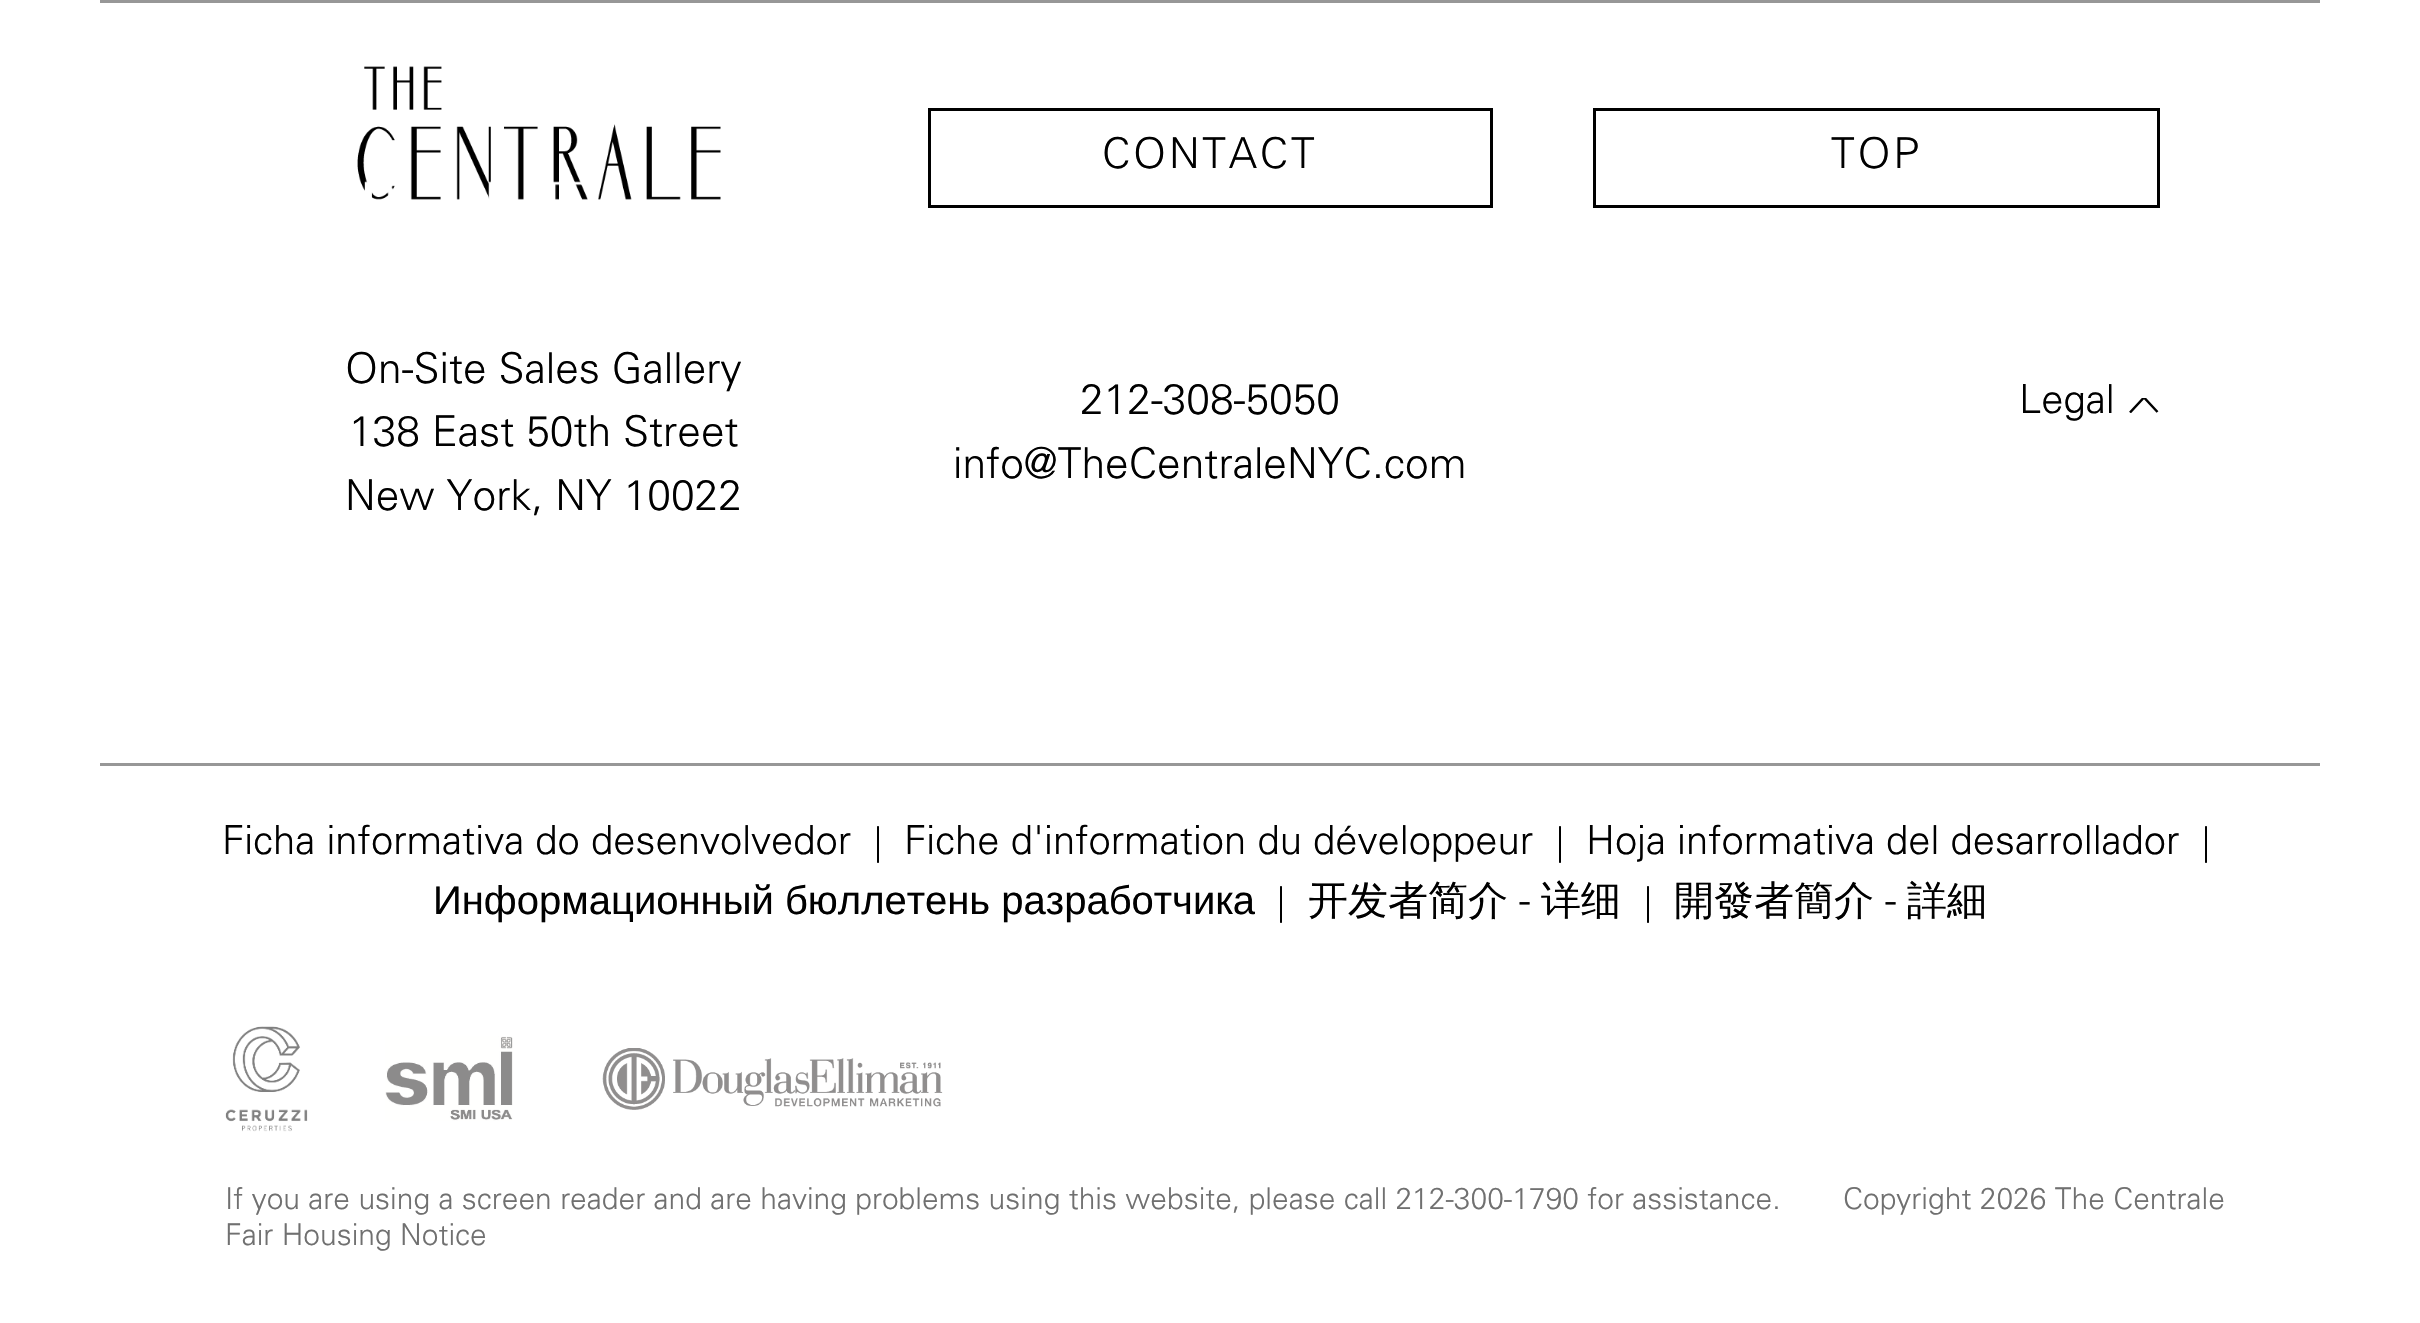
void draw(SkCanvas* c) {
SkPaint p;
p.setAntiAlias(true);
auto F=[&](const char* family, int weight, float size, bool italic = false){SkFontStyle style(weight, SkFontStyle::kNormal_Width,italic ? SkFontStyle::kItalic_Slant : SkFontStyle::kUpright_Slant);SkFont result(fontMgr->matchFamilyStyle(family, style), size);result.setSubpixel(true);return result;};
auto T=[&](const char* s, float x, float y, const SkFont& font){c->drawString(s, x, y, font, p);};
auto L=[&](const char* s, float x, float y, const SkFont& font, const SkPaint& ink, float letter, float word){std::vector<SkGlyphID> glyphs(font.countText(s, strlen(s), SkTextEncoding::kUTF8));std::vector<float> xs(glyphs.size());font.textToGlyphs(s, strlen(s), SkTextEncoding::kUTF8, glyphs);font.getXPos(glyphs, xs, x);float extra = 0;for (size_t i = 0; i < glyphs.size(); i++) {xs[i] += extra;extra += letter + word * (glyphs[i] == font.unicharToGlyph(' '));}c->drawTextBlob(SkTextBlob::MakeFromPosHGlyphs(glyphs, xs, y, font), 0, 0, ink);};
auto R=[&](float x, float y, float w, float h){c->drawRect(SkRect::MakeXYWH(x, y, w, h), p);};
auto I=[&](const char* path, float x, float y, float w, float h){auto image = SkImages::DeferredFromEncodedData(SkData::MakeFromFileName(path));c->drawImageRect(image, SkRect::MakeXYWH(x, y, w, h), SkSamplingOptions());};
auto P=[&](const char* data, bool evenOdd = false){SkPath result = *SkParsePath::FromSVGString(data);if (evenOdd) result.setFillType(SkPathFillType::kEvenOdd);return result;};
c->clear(0xffffffff);
p.setColor(0xff979797);
R(100,0,2220,3);
R(100,763,2220,3);
I("1.png",357,66,364,135);
p.setStroke(true);
p.setStrokeWidth(3);
p.setColor(0xff000000);
c->drawRect(SkRect::MakeXYWH(929.5,109.5,562,97),p);
auto f1 = F("Univers",300,42.5);
p.setStroke(false);
L("CONTACT",1102,168,f1,p,2.75,0);
p.setStroke(true);
c->drawRect(SkRect::MakeXYWH(1594.5,109.5,564,97),p);
p.setStroke(false);
L("TOP",1831,168,f1,p,2.75,0);
T("On-Site Sales Gallery",345,383,f1);
T("138 East 50th Street",349,446,f1);
T("New York, NY 10022",345,510,f1);
T("212-308-5050",1080,414,f1);
T("info@TheCentraleNYC.com",953,478,f1);
auto f2 = F("Univers",300,40);
T("Legal",2019,413,f2);
c->save();
c->clipRect(SkRect::MakeXYWH(2128,398,32,15));
p.setStroke(true);
p.setStrokeWidth(2.5);
c->drawPath(P("M2157.5 412l-13.5-14.5l-14 15"),p);
c->restore();
p.setStroke(false);
T("Ficha informativa do desenvolvedor",222,854,f2);
auto f3 = F("Liberation Serif",400,40);
T("|",874,854,f3);
T("Fiche d'information du développeur",904,854,f2);
T("|",1556,854,f3);
T("Hoja informativa del desarrollador",1586,854,f2);
T("|",2202,854,f3);
auto f4 = F("Liberation Sans",400,40);
T("Информационный бюллетень разработчика",433,914,f4);
T("|",1277,914,f3);
auto f5 = F("WenQuanYi Zen Hei",500,40);
T("开发者简介",1308,914,f5);
T("-",1519,914,f2);
T("详细",1541,914,f5);
T("|",1644,914,f3);
T("開發者簡介",1674,914,f5);
T("-",1885,914,f2);
T("詳細",1907,914,f5);
I("2.png",225,1026,83,106);
I("3.png",385,1036,128,85);
I("4.png",602,1048,341,62);
auto f6 = F("Univers",300,30);
p.setColor(0xff707070);
T("If you are using a screen reader and are having problems using this website, please call 212-300-1790 for assistance.",225,1209,f6);
T("Copyright 2026 The Centrale",1843,1209,f6);
T("Fair Housing Notice",225,1245,f6);
I("5.png",364,181,218,21);
}
